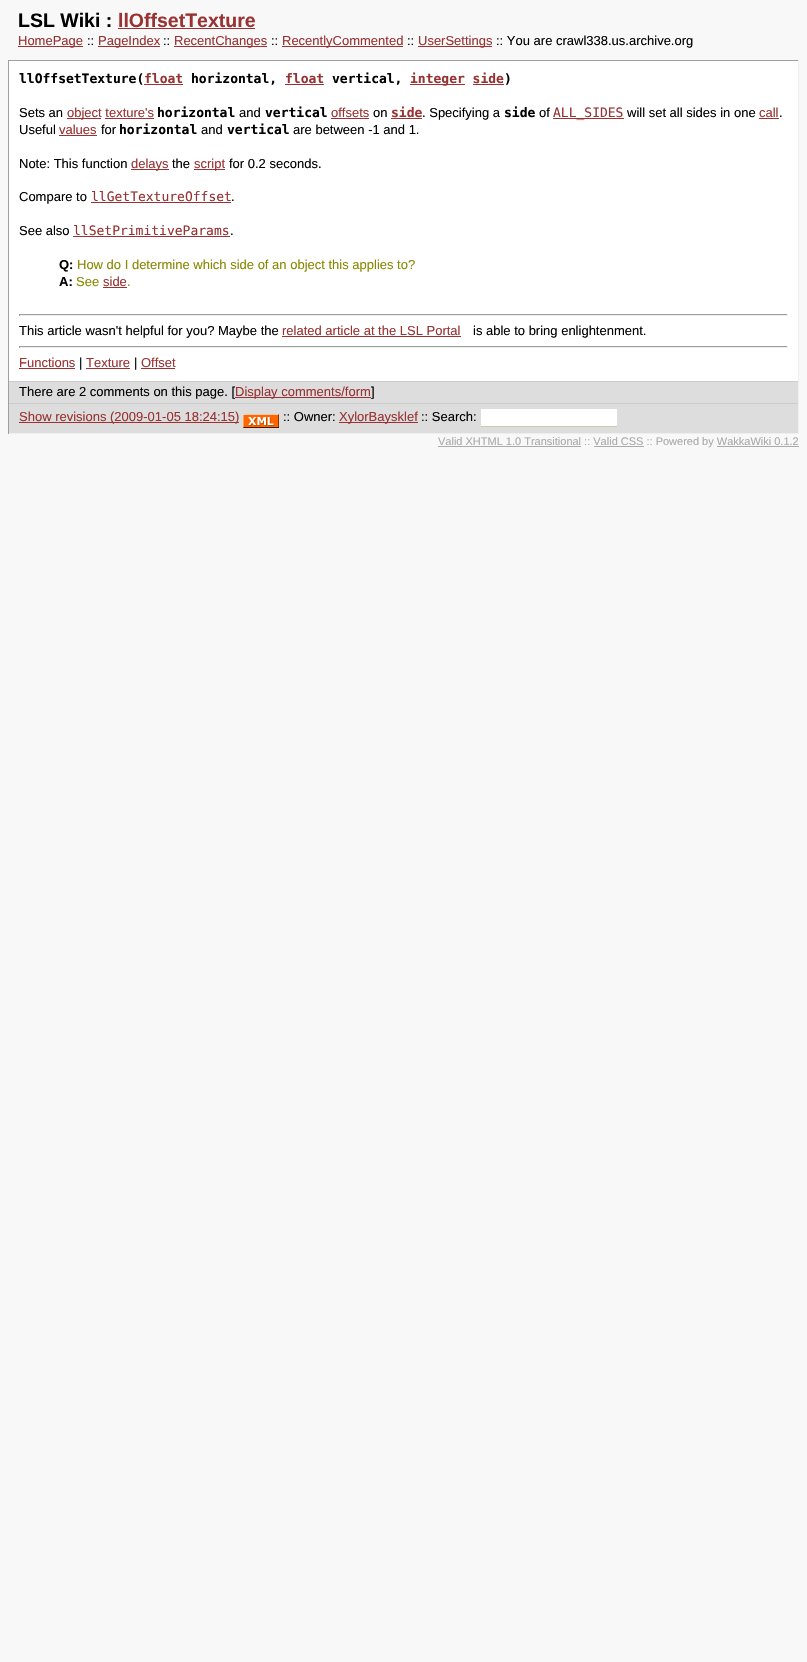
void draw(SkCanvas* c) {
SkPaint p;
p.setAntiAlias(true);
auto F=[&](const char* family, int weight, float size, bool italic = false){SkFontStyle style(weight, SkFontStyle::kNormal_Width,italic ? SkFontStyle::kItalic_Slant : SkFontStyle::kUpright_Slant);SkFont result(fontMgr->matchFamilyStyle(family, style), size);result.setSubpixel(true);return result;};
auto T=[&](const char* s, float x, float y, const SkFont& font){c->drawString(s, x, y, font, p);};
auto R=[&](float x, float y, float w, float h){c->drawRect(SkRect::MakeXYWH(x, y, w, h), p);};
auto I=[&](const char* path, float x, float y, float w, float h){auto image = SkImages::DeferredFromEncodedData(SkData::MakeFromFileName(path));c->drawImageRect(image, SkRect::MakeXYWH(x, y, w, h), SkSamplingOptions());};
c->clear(0xfff8f8f8);
auto f1 = F("Liberation Sans",700,19.5);
p.setColor(0xff000000);
T("LSL Wiki :",18,27,f1);
p.setColor(0xff993333);
T("llOffsetTexture",118,27,f1);
R(118,28,137,1);
R(18,46,65,1);
auto f2 = F("Liberation Sans",400,13);
T("HomePage",18,45,f2);
p.setColor(0xff000000);
T("::",87,45,f2);
p.setColor(0xff993333);
R(98,46,62,1);
T("PageIndex",98,45,f2);
p.setColor(0xff000000);
T("::",163,45,f2);
p.setColor(0xff993333);
R(174,46,93,1);
T("RecentChanges",174,45,f2);
p.setColor(0xff000000);
T("::",271,45,f2);
p.setColor(0xff993333);
R(282,46,121,1);
T("RecentlyCommented",282,45,f2);
p.setColor(0xff000000);
T("::",407,45,f2);
p.setColor(0xff993333);
R(418,46,74,1);
T("UserSettings",418,45,f2);
p.setColor(0xff000000);
T(":: You are crawl338.us.archive.org",496,45,f2);
p.setColor(0xffffffff);
R(9,61,789,320);
p.setColor(0xff9f9f9f);
R(8,60,791,1);
p.setColor(0xffeeeeee);
R(798,60,1,321);
p.setColor(0xff9f9f9f);
R(8,60,1,321);
auto f3 = F("DejaVu Sans Mono",700,13);
p.setColor(0xff000000);
T("llOffsetTexture(",19,83,f3);
p.setColor(0xff993333);
R(144,84,39,1);
T("float",144,83,f3);
p.setColor(0xff000000);
T("horizontal,",191,83,f3);
p.setColor(0xff993333);
T("float",285,83,f3);
R(285,84,39,1);
p.setColor(0xff000000);
T("vertical,",332,83,f3);
p.setColor(0xff993333);
R(410,84,55,1);
T("integer side",410,83,f3);
R(473,84,31,1);
p.setColor(0xff000000);
T(")",504,83,f3);
T("Sets an",19,117,f2);
p.setColor(0xff993333);
R(67,118,34,1);
T("object texture's",67,117,f2);
p.setColor(0xff000000);
T("horizontal",157,117,f3);
T("and",239,117,f2);
T("vertical",265,117,f3);
p.setColor(0xff993333);
T("offsets",331,117,f2);
R(331,118,38,1);
p.setColor(0xff000000);
T("on",373,117,f2);
p.setColor(0xff993333);
T("side",391,117,f3);
R(391,118,31,1);
p.setColor(0xff000000);
T(". Specifying a",422,117,f2);
T("side",504,117,f3);
T("of",539,117,f2);
p.setColor(0xff993333);
R(553,118,71,1);
auto f4 = F("DejaVu Sans Mono",400,13);
T("ALL_SIDES",553,117,f4);
p.setColor(0xff000000);
T("will set all sides in one",627,117,f2);
p.setColor(0xff993333);
T("call",759,117,f2);
R(759,118,20,1);
p.setColor(0xff000000);
T(".",779,117,f2);
p.setColor(0xff993333);
R(105,118,49,1);
p.setColor(0xff000000);
T("Useful",19,134,f2);
p.setColor(0xff993333);
T("values",59,134,f2);
R(59,135,38,1);
p.setColor(0xff000000);
T("for",101,134,f2);
T("horizontal",119,134,f3);
T("and",201,134,f2);
T("vertical",227,134,f3);
T("are between -1 and 1.",293,134,f2);
T("Note: This function",19,168,f2);
p.setColor(0xff993333);
R(131,169,38,1);
T("delays",131,168,f2);
p.setColor(0xff000000);
T("the",172,168,f2);
p.setColor(0xff993333);
R(194,169,31,1);
T("script",194,168,f2);
p.setColor(0xff000000);
T("for 0.2 seconds.",229,168,f2);
T("Compare to",19,201,f2);
p.setColor(0xff993333);
T("llGetTextureOffset",91,201,f4);
R(91,202,140,1);
p.setColor(0xff000000);
T(".",231,201,f2);
T("See also",19,235,f2);
p.setColor(0xff993333);
T("llSetPrimitiveParams",73,235,f4);
R(73,236,157,1);
p.setColor(0xff000000);
T(".",230,235,f2);
auto f5 = F("Liberation Sans",700,13);
T("Q:",59,269,f5);
p.setColor(0xff888800);
T("How do I determine which side of an object this applies to?",77,269,f2);
p.setColor(0xff000000);
T("A:",59,286,f5);
p.setColor(0xff888800);
T("See",76,286,f2);
p.setColor(0xff993333);
T("side",103,286,f2);
p.setColor(0xff888800);
T(".",127,286,f2);
p.setColor(0xff993333);
R(103,287,24,1);
p.setColor(0xff9f9f9f);
R(19,314,769,1);
p.setColor(0xffeeeeee);
R(787,314,1,2);
R(19,315,769,1);
p.setColor(0xff9f9f9f);
R(19,314,1,2);
p.setColor(0xff000000);
T("This article wasn't helpful for you? Maybe the",19,335,f2);
p.setColor(0xff993333);
T("related article at the LSL Portal",282,335,f2);
R(282,336,179,1);
p.setColor(0xff000000);
T("is able to bring enlightenment.",473,335,f2);
p.setColor(0xff9f9f9f);
R(19,346,769,1);
p.setColor(0xffeeeeee);
R(787,346,1,2);
R(19,347,769,1);
p.setColor(0xff9f9f9f);
R(19,346,1,2);
p.setColor(0xff993333);
T("Functions",19,367,f2);
R(19,368,56,1);
p.setColor(0xff000000);
T("|",79,367,f2);
p.setColor(0xff993333);
T("Texture",86,367,f2);
R(86,368,44,1);
p.setColor(0xff000000);
T("|",134,367,f2);
p.setColor(0xff993333);
T("Offset",141,367,f2);
R(141,368,34,1);
p.setColor(0xffdddddd);
R(9,382,789,21);
p.setColor(0xffcccccc);
R(8,381,791,1);
p.setColor(0xffeeeeee);
R(798,381,1,22);
p.setColor(0xff9f9f9f);
R(8,381,1,22);
p.setColor(0xff000000);
T("There are 2 comments on this page. [",19,396,f2);
p.setColor(0xff993333);
R(235,397,136,1);
T("Display comments/form",235,396,f2);
p.setColor(0xff000000);
T("]",371,396,f2);
p.setColor(0xffdddddd);
R(9,404,789,29);
p.setColor(0xffcccccc);
R(8,403,791,1);
p.setColor(0xffeeeeee);
R(798,403,1,31);
R(8,433,791,1);
p.setColor(0xff9f9f9f);
R(8,403,1,31);
p.setColor(0xff993333);
R(19,422,220,1);
T("Show revisions (2009-01-05 18:24:15)",19,421,f2);
I("1.png",243,414,36,14);
p.setColor(0xff000000);
T(":: Owner:",283,421,f2);
p.setColor(0xff993333);
R(339,422,79,1);
T("XylorBaysklef",339,421,f2);
p.setColor(0xff000000);
T(":: Search:",421,421,f2);
p.setColor(0xffffffff);
R(481,409,136,17);
p.setColor(0xffccccaa);
R(481,426,136,1);
p.setColor(0xffaaaaaa);
R(438,446,143,1);
auto f6 = F("Liberation Sans",400,11);
T("Valid XHTML 1.0 Transitional :: Valid CSS :: Powered by WakkaWiki 0.1.2",438,445,f6);
R(594,446,50,1);
R(717,446,82,1);
}
